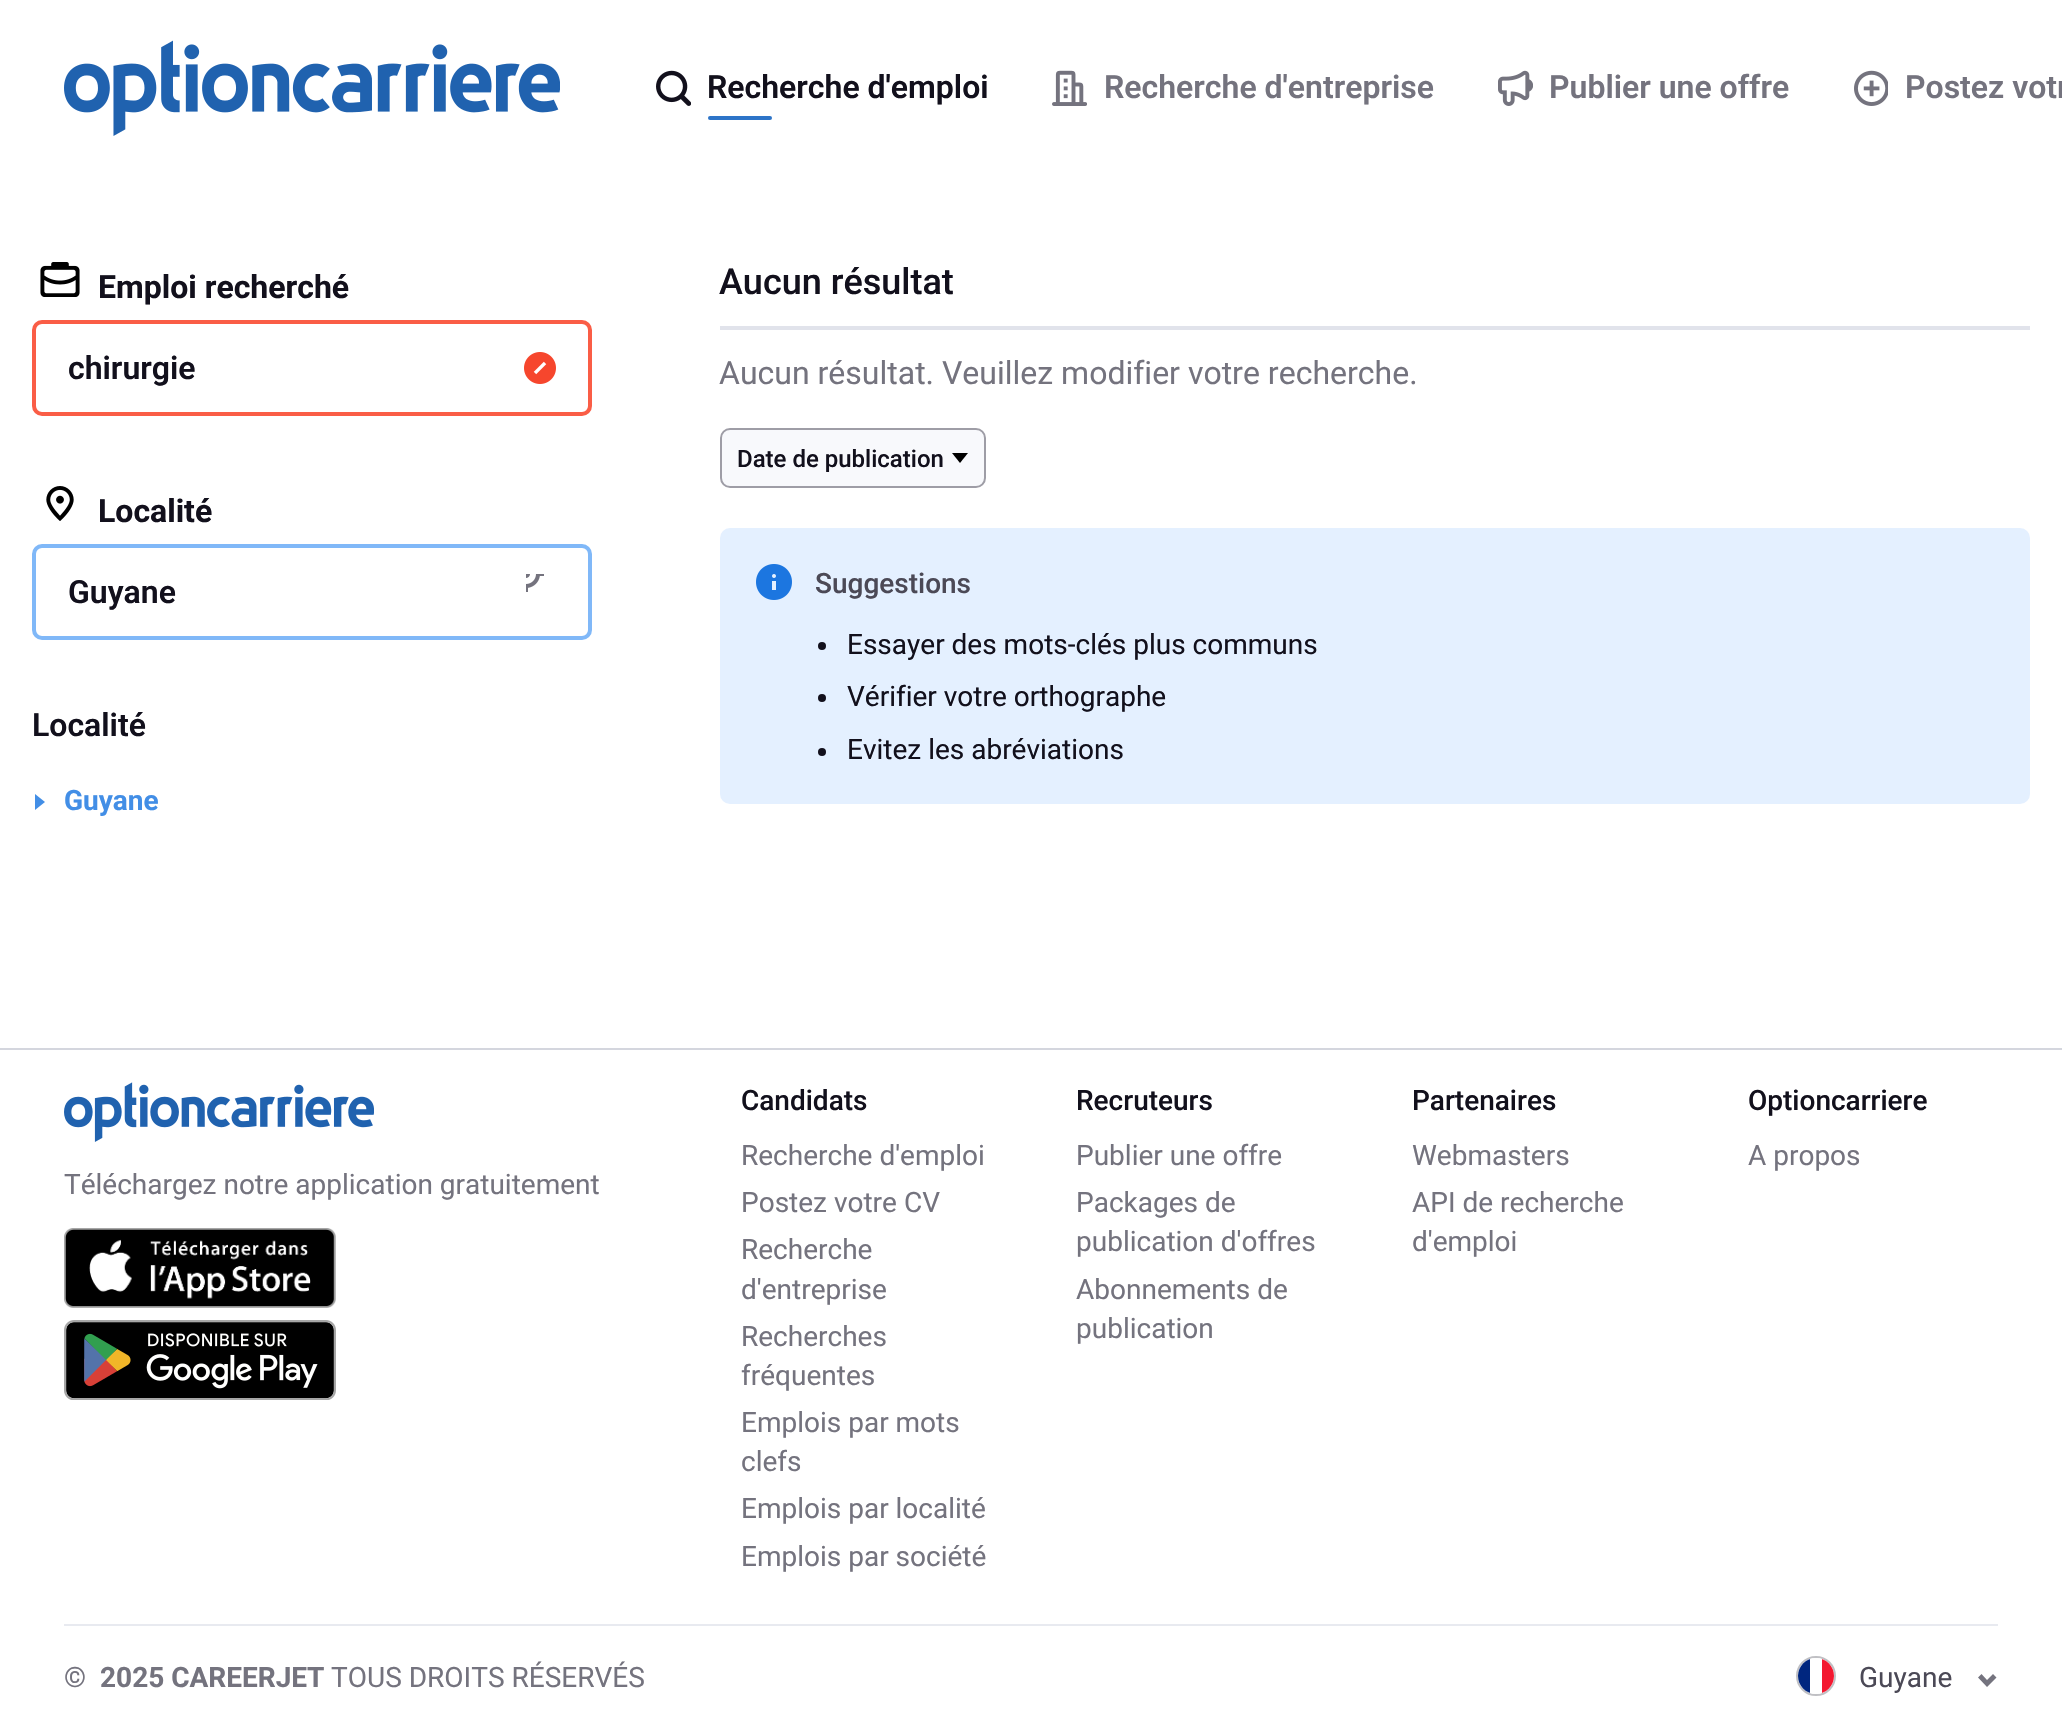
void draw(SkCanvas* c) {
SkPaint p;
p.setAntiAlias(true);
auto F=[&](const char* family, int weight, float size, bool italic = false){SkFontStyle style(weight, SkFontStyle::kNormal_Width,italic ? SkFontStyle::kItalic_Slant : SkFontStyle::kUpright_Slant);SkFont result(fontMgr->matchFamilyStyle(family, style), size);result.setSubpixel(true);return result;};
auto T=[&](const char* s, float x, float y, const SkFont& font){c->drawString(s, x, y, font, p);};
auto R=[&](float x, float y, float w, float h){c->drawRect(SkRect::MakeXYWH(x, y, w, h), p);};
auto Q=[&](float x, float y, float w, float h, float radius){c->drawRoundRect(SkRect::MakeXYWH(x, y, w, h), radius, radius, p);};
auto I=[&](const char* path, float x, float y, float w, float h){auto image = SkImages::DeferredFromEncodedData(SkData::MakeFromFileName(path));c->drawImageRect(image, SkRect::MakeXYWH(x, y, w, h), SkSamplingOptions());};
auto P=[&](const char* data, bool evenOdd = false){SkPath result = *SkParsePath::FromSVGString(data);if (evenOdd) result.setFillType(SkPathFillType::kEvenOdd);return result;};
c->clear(0xffffffff);
I("1.png",64,40,496,96);
I("2.png",656,70,35,36);
auto f1 = F("Roboto",600,32);
p.setColor(0xff12101c);
T("Recherche d'emploi",707,98,f1);
p.setColor(0xff2d74c8);
Q(708,116,64,4,2);
I("3.png",1052,70,35,36);
p.setColor(0xff74737e);
T("Recherche d'entreprise",1104,98,f1);
I("4.png",1498,70,35,36);
T("Publier une offre",1549,98,f1);
I("5.png",1854,70,34,36);
T("Postez votr",1905,98,f1);
I("6.png",40,262,40,35);
auto f2 = F("Roboto",700,32);
p.setColor(0xff12101c);
T("Emploi recherché",98,298,f2);
I("7.png",524,352,32,32);
p.setStroke(true);
p.setStrokeWidth(4);
p.setColor(0xfffa5d46);
c->drawRoundRect(SkRect::MakeXYWH(34,322,556,92),8,8,p);
p.setStroke(false);
p.setColor(0xff12101c);
T("chirurgie",68,379,f1);
I("8.png",46,486,28,35);
T("Localité",98,522,f2);
p.setStroke(true);
p.setColor(0xff80b8f8);
c->drawRoundRect(SkRect::MakeXYWH(34,546,556,92),8,8,p);
p.setStroke(false);
p.setColor(0xff12101c);
T("Guyane",68,603,f1);
I("9.png",526,574,18,18);
T("Localité",32,736,f1);
p.setColor(0xff428ee6);
c->drawPath(P("M35 794l10 8l-10 8v-16"),p);
auto f3 = F("Roboto",700,28);
T("Guyane",64,810,f3);
p.setColor(0xffe1e3eb);
R(720,326,1310,4);
auto f4 = F("Roboto",500,36);
p.setColor(0xff12101c);
T("Aucun résultat",719,294,f4);
auto f5 = F("Roboto",400,32);
p.setColor(0xff74737e);
T("Aucun résultat. Veuillez modifier votre recherche.",719,384,f5);
p.setColor(0xfff8f9fc);
c->drawRoundRect(SkRect::MakeXYWH(721,429,264,58),9,9,p);
p.setStroke(true);
p.setStrokeWidth(2);
p.setColor(0xff9e9da6);
c->drawRoundRect(SkRect::MakeXYWH(721,429,264,58),9,9,p);
auto f6 = F("Roboto",500,24);
p.setStroke(false);
p.setColor(0xff12101c);
T("Date de publication",737,467,f6);
p.setColor(0xff000000);
c->drawPath(P("M968 453l-8 10l-8-10h16"),p);
p.setColor(0xffe4f0ff);
Q(720,528,1310,276,10);
I("10.png",756,564,36,36);
auto f7 = F("Roboto",500,28);
p.setColor(0xff4b4956);
T("Suggestions",815,593,f7);
p.setColor(0xff12101c);
c->drawCircle(822,646,4,p);
auto f8 = F("Roboto",400,28);
T("Essayer des mots-clés plus communs",847,654,f8);
c->drawCircle(822,698,4,p);
T("Vérifier votre orthographe",847,706,f8);
c->drawCircle(822,752,4,p);
T("Evitez les abréviations",847,759,f8);
p.setColor(0xffd4d6de);
R(0,1048,2062,2);
I("11.png",64,1082,310,60);
p.setColor(0xff74737e);
T("Téléchargez notre application gratuitement",64,1194,f8);
I("12.png",64,1228,272,80);
I("13.png",64,1320,272,80);
p.setColor(0xff12101c);
T("Candidats",741,1110,f7);
p.setColor(0xff74737e);
T("Recherche d'emploi",741,1165,f8);
T("Postez votre CV",741,1212,f8);
T("Recherche",741,1259,f8);
T("d'entreprise",741,1299,f8);
T("Recherches",741,1346,f8);
T("fréquentes",741,1385,f8);
T("Emplois par mots",741,1432,f8);
T("clefs",741,1471,f8);
T("Emplois par localité",741,1518,f8);
T("Emplois par société",741,1566,f8);
p.setColor(0xff12101c);
T("Recruteurs",1076,1110,f7);
p.setColor(0xff74737e);
T("Publier une offre",1076,1165,f8);
T("Packages de",1076,1212,f8);
T("publication d'offres",1076,1251,f8);
T("Abonnements de",1076,1299,f8);
T("publication",1076,1338,f8);
p.setColor(0xff12101c);
T("Partenaires",1412,1110,f7);
p.setColor(0xff74737e);
T("Webmasters",1412,1165,f8);
T("API de recherche",1412,1212,f8);
T("d'emploi",1412,1251,f8);
p.setColor(0xff12101c);
T("Optioncarriere",1748,1110,f7);
p.setColor(0xff74737e);
T("A propos",1748,1165,f8);
p.setColor(0xffe8eaf0);
R(64,1624,1934,2);
p.setColor(0xff74737e);
T("©",64,1687,f8);
T("2025 CAREERJET",100,1687,f3);
T("TOUS DROITS RÉSERVÉS",331,1687,f8);
p.setStroke(true);
p.setColor(0xffc0c0c4);
c->drawCircle(1816,1676,19,p);
p.setStroke(false);
p.setColor(0xffffffff);
c->drawCircle(1816,1676,18,p);
c->save();
c->clipPath(P("M1816 1658c10 0 18 8 18 18c0 10-8 18-18 18c-10 0-18-8-18-18c0-10 8-18 18-18z"),true);
p.setColor(0xff00267f);
R(1798,1659,12,34);
p.setColor(0xfff31830);
R(1822,1659,12,34);
c->restore();
p.setColor(0xff4b4956);
T("Guyane",1859,1687,f8);
p.setColor(0xff74737e);
c->drawPath(P("M1987 1680l-5.5-6l-3.5 3.5l9 9.5l9.5-9.5l-3.5-3.5z"),p);
}
